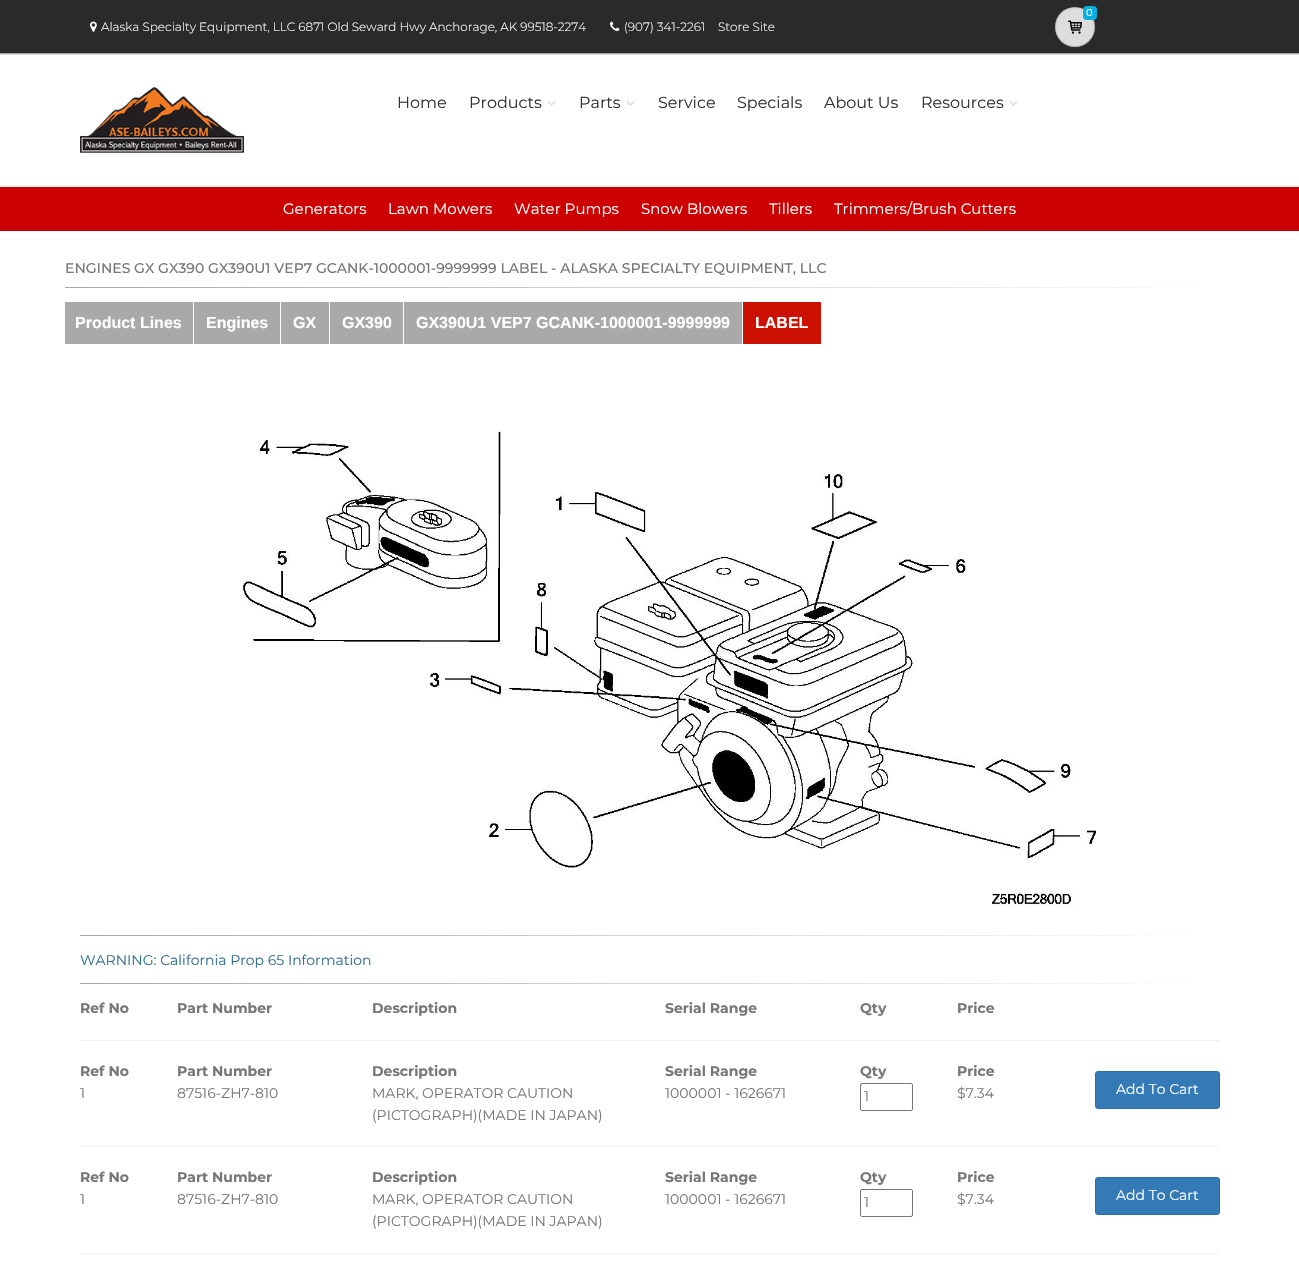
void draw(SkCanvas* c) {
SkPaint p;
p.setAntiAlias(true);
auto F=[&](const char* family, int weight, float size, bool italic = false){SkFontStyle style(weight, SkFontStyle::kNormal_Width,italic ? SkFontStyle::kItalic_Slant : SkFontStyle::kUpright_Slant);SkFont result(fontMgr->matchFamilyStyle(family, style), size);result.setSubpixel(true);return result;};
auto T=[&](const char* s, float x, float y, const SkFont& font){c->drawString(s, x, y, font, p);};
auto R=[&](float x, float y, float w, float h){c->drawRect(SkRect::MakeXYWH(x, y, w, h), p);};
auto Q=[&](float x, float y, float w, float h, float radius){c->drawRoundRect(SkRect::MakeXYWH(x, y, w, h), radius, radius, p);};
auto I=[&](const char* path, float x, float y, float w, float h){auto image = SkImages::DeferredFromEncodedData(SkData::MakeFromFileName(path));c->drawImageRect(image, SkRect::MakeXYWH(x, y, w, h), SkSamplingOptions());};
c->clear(0xffffffff);
p.setColor(0xff2a2a2a);
R(0,0,1299,53);
p.setColor(0xffa1a1a1);
R(0,53,1299,1);
p.setColor(0xffdddddd);
c->drawCircle(1075,27,20,p);
p.setStroke(true);
p.setStrokeWidth(1);
p.setColor(0x26000000);
c->drawCircle(1075,27,19.5,p);
p.setStroke(false);
p.setColor(0xff09afdf);
Q(1083,6,14,14,4);
auto f1 = F("Montserrat",400,10);
p.setColor(0xffffffff);
T("0",1086,16,f1);
I("1.png",1068,20,14,14);
I("2.png",90,21,7,11);
auto f2 = F("Montserrat",300,12);
T("Alaska Specialty Equipment, LLC 6871 Old Seward Hwy Anchorage, AK 99518-2274",101,31,f2);
I("3.png",610,21,10,10);
T("(907) 341-2261",624,31,f2);
T("Store Site",718,31,f2);
p.setColor(0xffdddddd);
R(0,54,1299,1);
p.setColor(0xfff1f1f1);
R(0,185,1299,2);
I("4.png",80,87,164,66);
auto f3 = F("Montserrat",400,16);
p.setColor(0xff333333);
T("Home",397,108,f3);
T("Products",469,108,f3);
I("5.png",547,101,9,5);
T("Parts",579,108,f3);
I("5.png",626,101,9,5);
T("Service",658,108,f3);
T("Specials",737,108,f3);
T("About Us",824,108,f3);
T("Resources",921,108,f3);
I("5.png",1009,101,9,5);
p.setColor(0xffcc0000);
R(0,187,1299,44);
auto f4 = F("Montserrat",400,15);
p.setColor(0xffffffff);
T("Generators",283,214,f4);
T("Lawn Mowers",388,214,f4);
T("Water Pumps",514,214,f4);
T("Snow Blowers",641,214,f4);
T("Tillers",769,214,f4);
T("Trimmers/Brush Cutters",834,214,f4);
auto f5 = F("Montserrat",500,14);
p.setColor(0xff777777);
T("ENGINES GX GX390 GX390U1 VEP7 GCANK-1000001-9999999 LABEL - ALASKA SPECIALTY EQUIPMENT, LLC",65,273,f5);
{
const SkColor colors[] = {0xffa7a7a7,0xffffffff};
const float stops[] = {0,1};
const SkPoint ends[] = {{65,288}, {1235,287}};
p.setShader(SkGradientShader::MakeLinear(ends, colors, stops, 2, SkTileMode::kClamp));
p.setAlpha(255);
}
R(65,287,1137,1);
p.setShader(nullptr);
p.setColor(0xffa9a9a9);
R(65,302,128,42);
auto f6 = F("Liberation Sans",700,16);
p.setColor(0xffffffff);
T("Product Lines",75,328,f6);
p.setColor(0xffa9a9a9);
R(194,302,86,42);
p.setColor(0xffffffff);
T("Engines",206,328,f6);
p.setColor(0xffa9a9a9);
R(281,302,48,42);
p.setColor(0xffffffff);
T("GX",293,328,f6);
p.setColor(0xffa9a9a9);
R(330,302,73,42);
p.setColor(0xffffffff);
T("GX390",342,328,f6);
p.setColor(0xffa9a9a9);
R(404,302,338,42);
p.setColor(0xffffffff);
T("GX390U1 VEP7 GCANK-1000001-9999999",416,328,f6);
p.setColor(0xffcc1001);
R(743,302,78,42);
p.setColor(0xffffffff);
T("LABEL",755,328,f6);
I("6.png",241,431,855,475);
{
const SkColor colors[] = {0xffa7a7a7,0xffffffff};
const float stops[] = {0,1};
const SkPoint ends[] = {{80,936}, {1220,936}};
p.setShader(SkGradientShader::MakeLinear(ends, colors, stops, 2, SkTileMode::kClamp));
p.setAlpha(255);
}
R(80,935,1108,1);
auto f7 = F("Montserrat",400,14);
p.setShader(nullptr);
p.setColor(0xff31708f);
T("WARNING: California Prop 65 Information",80,965,f7);
{
const SkColor colors[] = {0xffa7a7a7,0xffffffff};
const float stops[] = {0,1};
const SkPoint ends[] = {{80,984}, {1220,984}};
p.setShader(SkGradientShader::MakeLinear(ends, colors, stops, 2, SkTileMode::kClamp));
p.setAlpha(255);
}
R(80,983,1108,1);
auto f8 = F("Montserrat",700,14);
p.setShader(nullptr);
p.setColor(0xff777777);
T("Ref No",80,1013,f8);
T("Part Number",177,1013,f8);
T("Description",372,1013,f8);
T("Serial Range",665,1013,f8);
T("Qty",860,1013,f8);
T("Price",957,1013,f8);
p.setColor(0xffeeeeee);
R(80,1040,1140,1);
p.setColor(0xff777777);
T("Ref No",80,1076,f8);
T("1",80,1098,f7);
T("Part Number",177,1076,f8);
T("87516-ZH7-810",177,1098,f7);
T("Description",372,1076,f8);
T("MARK, OPERATOR CAUTION",372,1098,f7);
T("(PICTOGRAPH)(MADE IN JAPAN)",372,1120,f7);
T("Serial Range",665,1076,f8);
T("1000001 - 1626671",665,1098,f7);
T("Qty",860,1076,f8);
p.setStroke(true);
p.setColor(0xff767676);
c->drawRoundRect(SkRect::MakeXYWH(860.5,1083.5,52,27),1.5,1.5,p);
p.setStroke(false);
p.setColor(0xff777777);
T("1",864,1101,f7);
T("Price",957,1076,f8);
T("$7.34",957,1098,f7);
p.setColor(0xff337ab7);
c->drawRoundRect(SkRect::MakeXYWH(1095.5,1071.5,124,37),2.5,2.5,p);
p.setStroke(true);
p.setColor(0xff2e6da4);
c->drawRoundRect(SkRect::MakeXYWH(1095.5,1071.5,124,37),2.5,2.5,p);
p.setStroke(false);
p.setColor(0xffffffff);
T("Add To Cart",1116,1094,f7);
p.setColor(0xffeeeeee);
R(80,1146,1140,1);
p.setColor(0xff777777);
T("Ref No",80,1182,f8);
T("1",80,1204,f7);
T("Part Number",177,1182,f8);
T("87516-ZH7-810",177,1204,f7);
T("Description",372,1182,f8);
T("MARK, OPERATOR CAUTION",372,1204,f7);
T("(PICTOGRAPH)(MADE IN JAPAN)",372,1226,f7);
T("Serial Range",665,1182,f8);
T("1000001 - 1626671",665,1204,f7);
T("Qty",860,1182,f8);
p.setStroke(true);
p.setColor(0xff767676);
c->drawRoundRect(SkRect::MakeXYWH(860.5,1189.5,52,27),1.5,1.5,p);
p.setStroke(false);
p.setColor(0xff777777);
T("1",864,1207,f7);
T("Price",957,1182,f8);
T("$7.34",957,1204,f7);
p.setColor(0xff337ab7);
c->drawRoundRect(SkRect::MakeXYWH(1095.5,1177.5,124,37),2.5,2.5,p);
p.setStroke(true);
p.setColor(0xff2e6da4);
c->drawRoundRect(SkRect::MakeXYWH(1095.5,1177.5,124,37),2.5,2.5,p);
p.setStroke(false);
p.setColor(0xffffffff);
T("Add To Cart",1116,1200,f7);
p.setColor(0xffeeeeee);
R(80,1253,1140,1);
}
